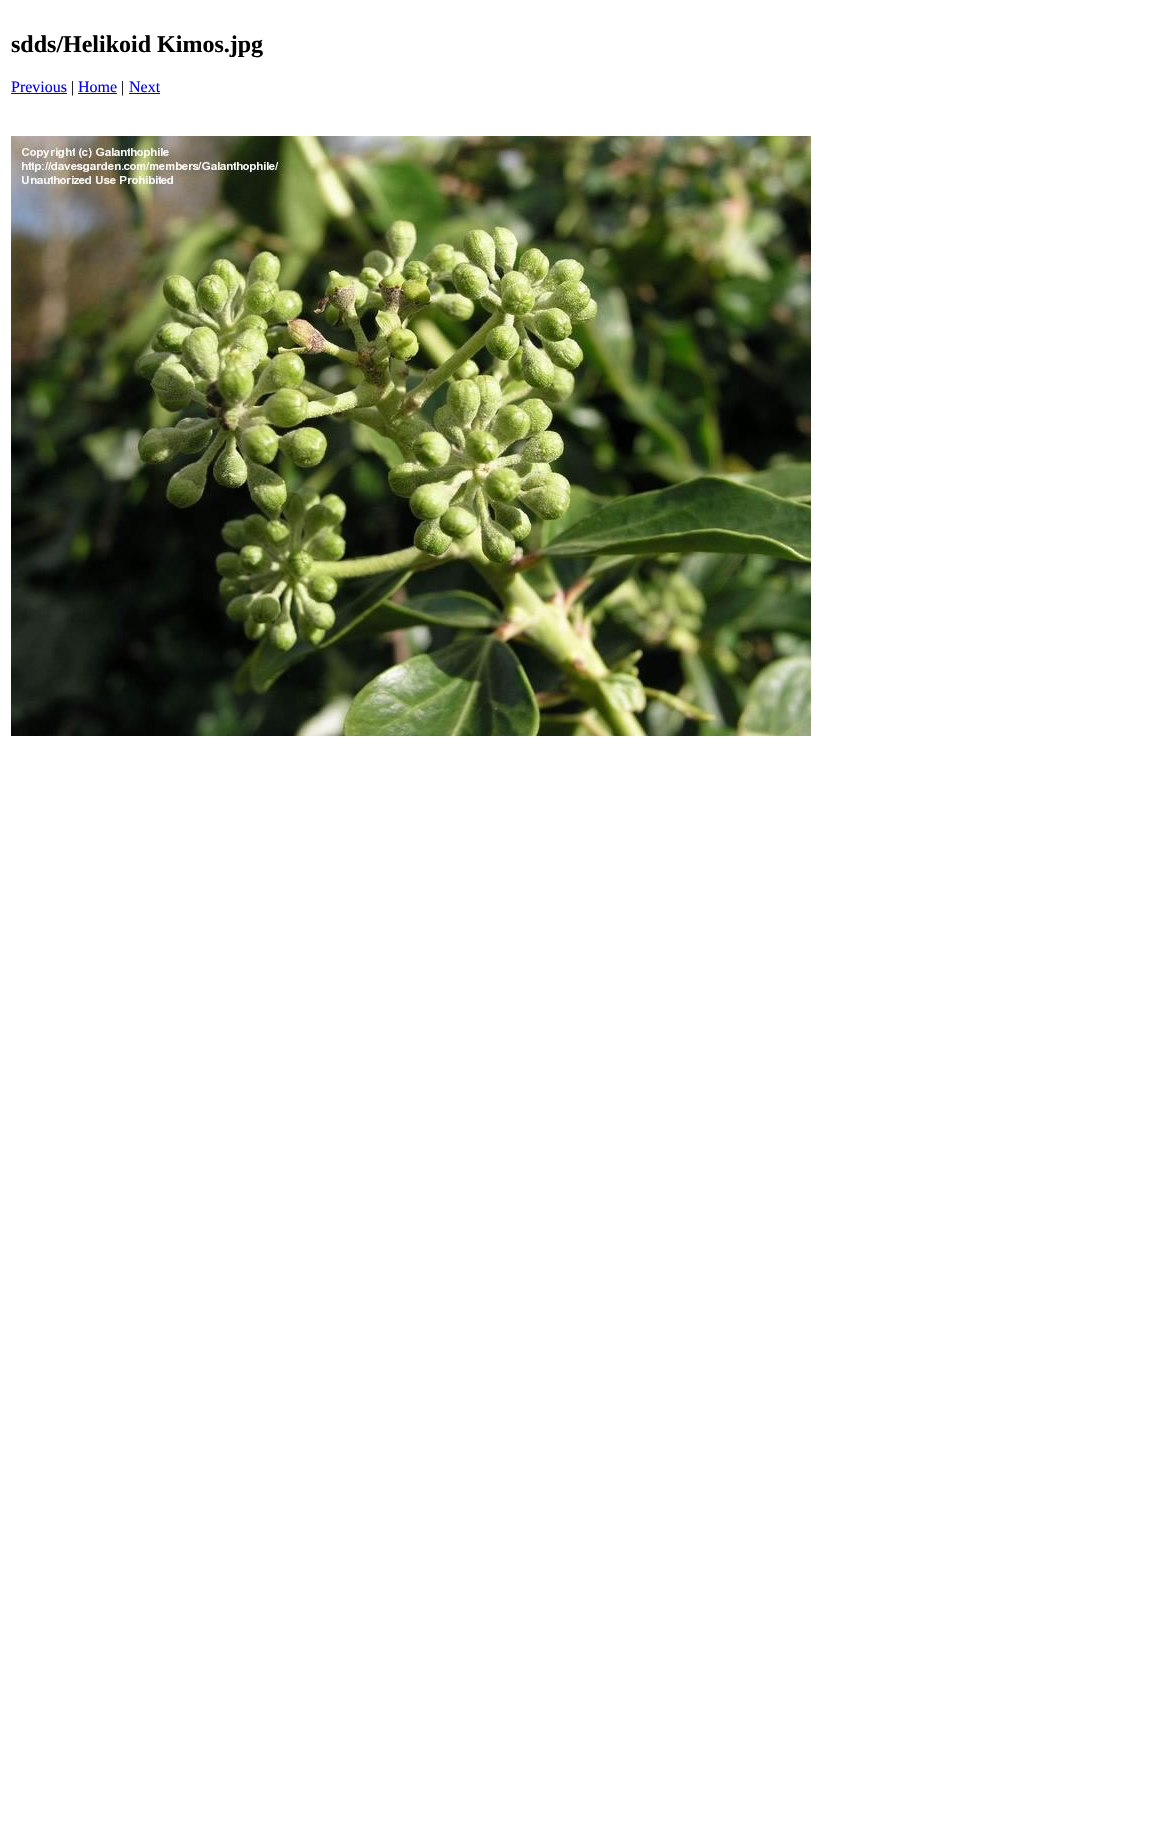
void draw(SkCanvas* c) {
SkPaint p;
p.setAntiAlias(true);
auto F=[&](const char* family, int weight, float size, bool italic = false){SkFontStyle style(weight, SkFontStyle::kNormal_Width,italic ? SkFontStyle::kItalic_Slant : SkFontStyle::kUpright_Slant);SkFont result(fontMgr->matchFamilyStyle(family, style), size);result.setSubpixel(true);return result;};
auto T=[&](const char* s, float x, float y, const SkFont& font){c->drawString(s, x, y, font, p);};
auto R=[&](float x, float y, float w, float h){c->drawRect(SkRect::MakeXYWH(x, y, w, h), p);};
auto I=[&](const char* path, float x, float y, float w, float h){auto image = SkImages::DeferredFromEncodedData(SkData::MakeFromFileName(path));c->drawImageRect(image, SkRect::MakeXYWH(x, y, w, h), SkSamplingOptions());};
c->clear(0xffffffff);
auto f1 = F("Liberation Serif",700,24);
p.setColor(0xff000000);
T("sdds/Helikoid Kimos.jpg",11,52,f1);
auto f2 = F("Liberation Serif",400,16);
p.setColor(0xff0000ee);
T("Previous",11,92,f2);
R(11,93,56,1);
p.setColor(0xff000000);
T("|",71,92,f2);
p.setColor(0xff0000ee);
T("Home",78,92,f2);
R(78,93,39,1);
p.setColor(0xff000000);
T("|",121,92,f2);
p.setColor(0xff0000ee);
T("Next",129,92,f2);
R(129,93,31,1);
I("1.png",11,136,800,600);
}
